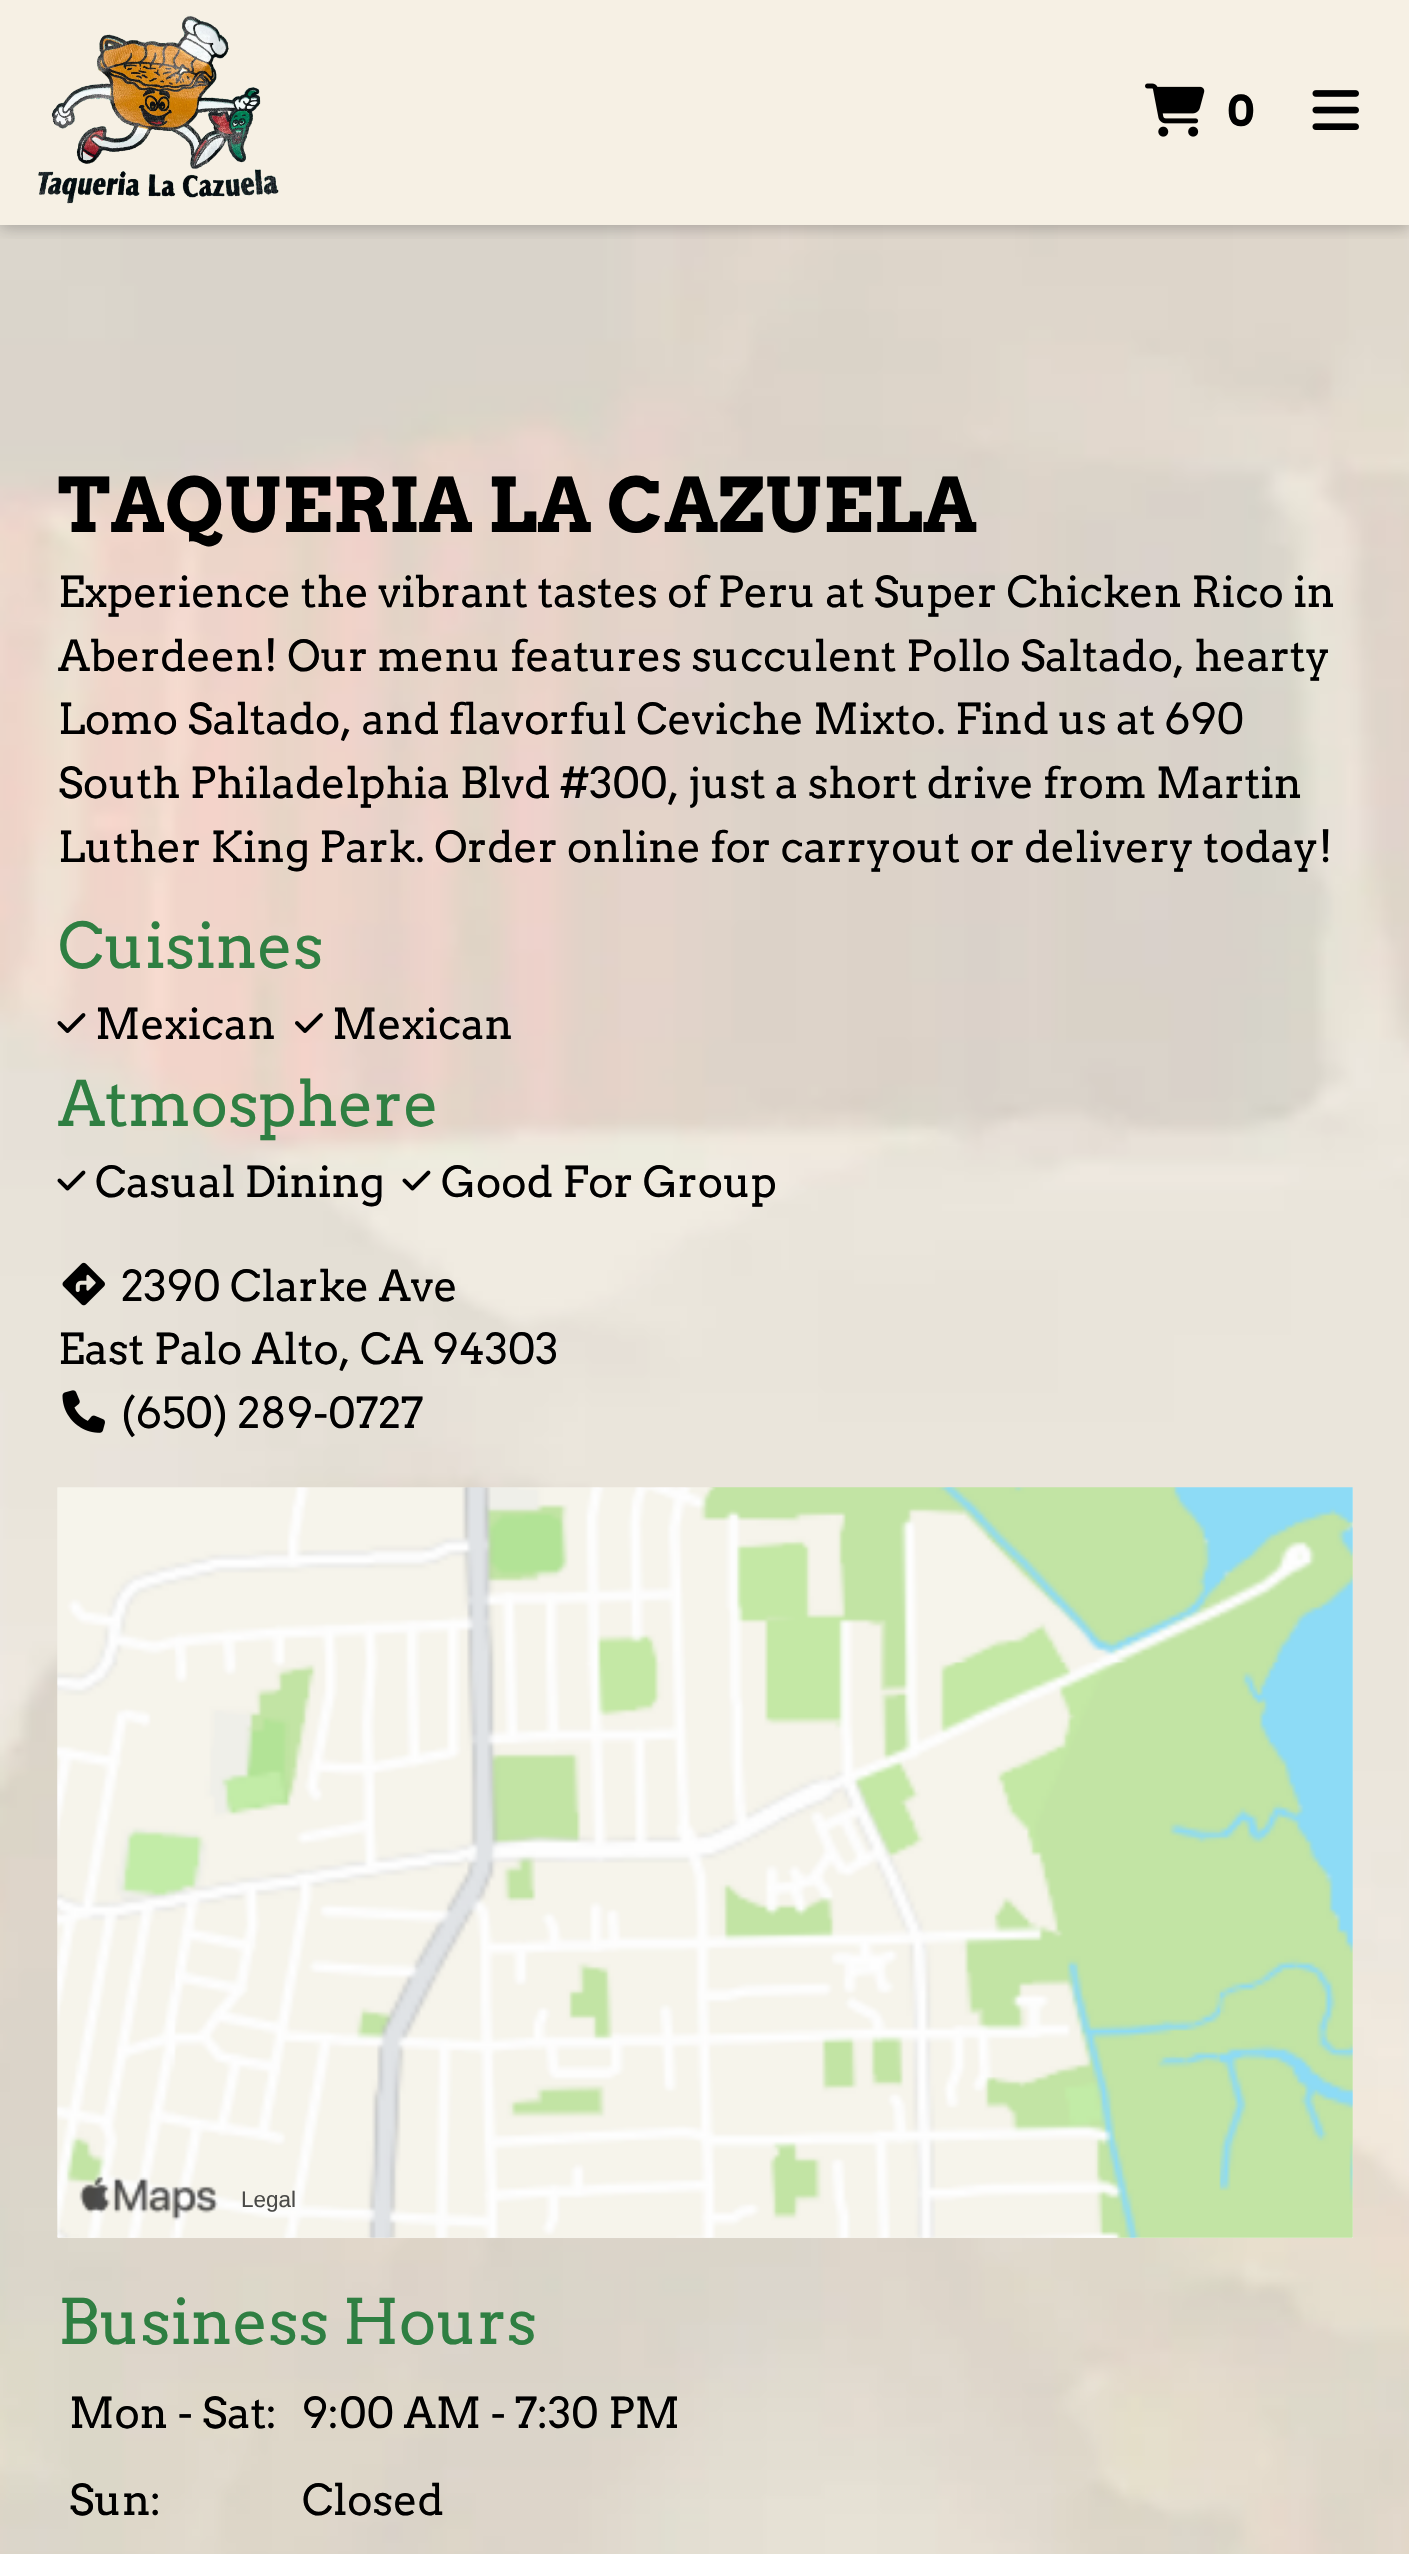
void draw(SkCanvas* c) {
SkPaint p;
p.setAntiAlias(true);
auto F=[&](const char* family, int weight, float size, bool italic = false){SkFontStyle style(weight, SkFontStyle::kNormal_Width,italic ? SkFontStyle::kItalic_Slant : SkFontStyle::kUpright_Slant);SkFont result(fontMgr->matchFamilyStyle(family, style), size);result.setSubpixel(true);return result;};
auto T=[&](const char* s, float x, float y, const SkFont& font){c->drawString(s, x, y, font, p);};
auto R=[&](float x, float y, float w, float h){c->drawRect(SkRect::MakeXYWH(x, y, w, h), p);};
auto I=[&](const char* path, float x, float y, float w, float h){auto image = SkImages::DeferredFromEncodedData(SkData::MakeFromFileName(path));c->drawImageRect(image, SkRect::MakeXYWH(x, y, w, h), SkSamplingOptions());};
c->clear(0xfff6f0e4);
I("4.png",0,225,1409,2329);
c->save();
c->clipRect(SkRect::MakeXYWH(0,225,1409,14));
p.setColor(0x47202124);
p.setMaskFilter(SkMaskFilter::MakeBlur(kNormal_SkBlurStyle, 7.5));
c->drawRect(SkRect::MakeXYWH(0,3,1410,225),p);
p.setMaskFilter(nullptr);
c->restore();
I("1.png",38,15,241,189);
I("2.png",1145,83,60,54);
auto f1 = F("Arvo",700,42.5);
p.setColor(0xff000000);
T("0",1227,126,f1);
I("3.png",1312,90,47,40);
auto f2 = F("Arvo",700,75);
T("TAQUERIA LA CAZUELA",58,532,f2);
auto f3 = F("Arvo",400,42.5);
T("Experience the vibrant tastes of Peru at Super Chicken Rico in",58,607,f3);
T("Aberdeen! Our menu features succulent Pollo Saltado, hearty",58,671,f3);
T("Lomo Saltado, and flavorful Ceviche Mixto. Find us at 690",58,734,f3);
T("South Philadelphia Blvd #300, just a short drive from Martin",58,798,f3);
T("Luther King Park. Order online for carryout or delivery today!",58,862,f3);
auto f4 = F("Arvo",400,62.5);
p.setColor(0xff2f7f42);
T("Cuisines",58,968,f4);
I("5.png",57,1013,29,20);
p.setColor(0xff000000);
T("Mexican",95,1039,f3);
I("6.png",295,1013,28,20);
T("Mexican",332,1039,f3);
p.setColor(0xff2f7f42);
T("Atmosphere",58,1126,f4);
I("7.png",57,1170,29,21);
p.setColor(0xff000000);
T("Casual Dining",95,1197,f3);
I("8.png",402,1170,29,21);
T("Good For Group",441,1197,f3);
I("9.png",62,1262,43,44);
T("2390 Clarke Ave",121,1301,f3);
T("East Palo Alto, CA 94303",58,1364,f3);
I("10.png",62,1390,43,43);
T("(650) 289-0727",121,1428,f3);
p.setColor(0xfff9f5ed);
R(58,1488,1295,750);
I("11.png",57,1487,1296,751);
I("12.png",57,1487,1296,751);
I("13.png",79,2176,139,45);
auto f5 = F("Liberation Sans",400,22.5);
p.setColor(0xff4a4a48);
T("Legal",241,2207,f5);
p.setColor(0xff2f7f42);
T("Business Hours",58,2344,f4);
p.setColor(0xff000000);
T("Mon - Sat:",69,2428,f3);
T("9:00 AM - 7:30 PM",302,2428,f3);
T("Sun:",69,2515,f3);
T("Closed",302,2515,f3);
}
